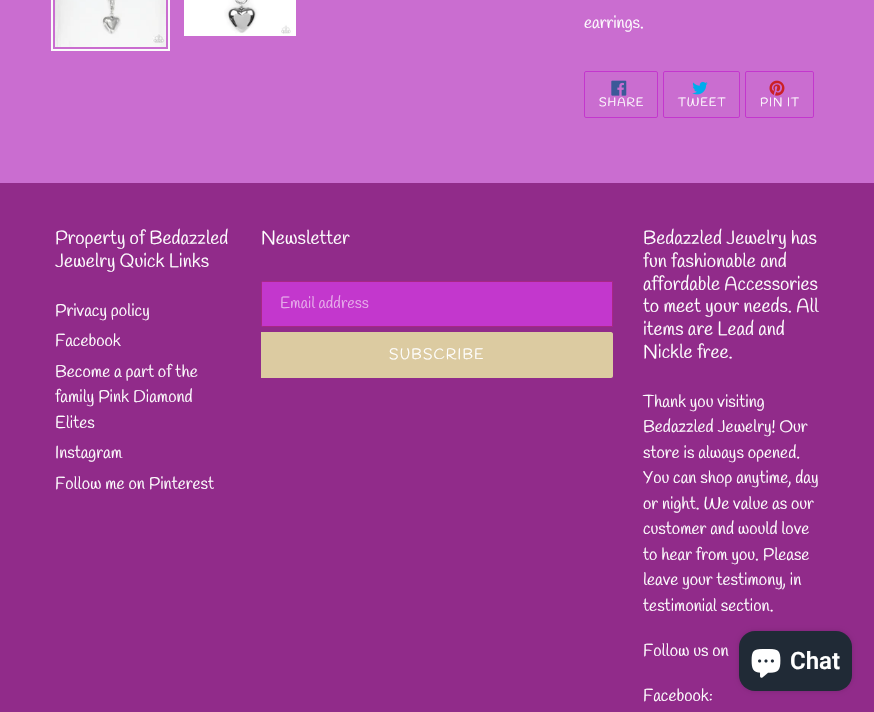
void draw(SkCanvas* c) {
SkPaint p;
p.setAntiAlias(true);
auto F=[&](const char* family, int weight, float size, bool italic = false){SkFontStyle style(weight, SkFontStyle::kNormal_Width,italic ? SkFontStyle::kItalic_Slant : SkFontStyle::kUpright_Slant);SkFont result(fontMgr->matchFamilyStyle(family, style), size);result.setSubpixel(true);return result;};
auto T=[&](const char* s, float x, float y, const SkFont& font){c->drawString(s, x, y, font, p);};
auto L=[&](const char* s, float x, float y, const SkFont& font, const SkPaint& ink, float letter, float word){std::vector<SkGlyphID> glyphs(font.countText(s, strlen(s), SkTextEncoding::kUTF8));std::vector<float> xs(glyphs.size());font.textToGlyphs(s, strlen(s), SkTextEncoding::kUTF8, glyphs);font.getXPos(glyphs, xs, x);float extra = 0;for (size_t i = 0; i < glyphs.size(); i++) {xs[i] += extra;extra += letter + word * (glyphs[i] == font.unicharToGlyph(' '));}c->drawTextBlob(SkTextBlob::MakeFromPosHGlyphs(glyphs, xs, y, font), 0, 0, ink);};
auto R=[&](float x, float y, float w, float h){c->drawRect(SkRect::MakeXYWH(x, y, w, h), p);};
auto Q=[&](float x, float y, float w, float h, float radius){c->drawRoundRect(SkRect::MakeXYWH(x, y, w, h), radius, radius, p);};
auto I=[&](const char* path, float x, float y, float w, float h){auto image = SkImages::DeferredFromEncodedData(SkData::MakeFromFileName(path));c->drawImageRect(image, SkRect::MakeXYWH(x, y, w, h), SkSamplingOptions());};
auto P=[&](const char* data, bool evenOdd = false){SkPath result = *SkParsePath::FromSVGString(data);if (evenOdd) result.setFillType(SkPathFillType::kEvenOdd);return result;};
c->clear(0xffca6dd0);
p.setStroke(true);
p.setStrokeWidth(2);
p.setColor(0xfffafafa);
c->drawRect(SkRect::MakeXYWH(52,-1,117,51),p);
I("1.png",55,0,111,47);
I("2.png",184,0,112,36);
auto f1 = F("Handlee",400,17);
p.setStroke(false);
p.setColor(0xffffffff);
T("earrings.",584,28,f1);
p.setStroke(true);
p.setStrokeWidth(1);
p.setColor(0xffc337cd);
c->drawRoundRect(SkRect::MakeXYWH(584.5,71.5,73,46),1.5,1.5,p);
I("3.png",611,80,16,16);
auto f2 = F("Handlee",400,12);
p.setStroke(false);
p.setColor(0xffffffff);
L("SHARE",599,106,f2,p,1,0);
p.setStroke(true);
p.setColor(0xffc337cd);
c->drawRoundRect(SkRect::MakeXYWH(663.5,71.5,76,46),1.5,1.5,p);
I("4.png",692,81,16,14);
p.setStroke(false);
p.setColor(0xffffffff);
L("TWEET",678,106,f2,p,1,0);
p.setStroke(true);
p.setColor(0xffc337cd);
c->drawRoundRect(SkRect::MakeXYWH(745.5,71.5,68,46),1.5,1.5,p);
I("5.png",769,80,16,16);
p.setStroke(false);
p.setColor(0xffffffff);
L("PIN IT",760,106,f2,p,1,0);
p.setColor(0xff912b8a);
R(0,183,874,529);
auto f3 = F("Handlee",400,19);
p.setColor(0xffffffff);
T("Property of Bedazzled",55,244,f3);
T("Jewelry Quick Links",55,267,f3);
T("Privacy policy",55,316,f1);
T("Facebook",55,346,f1);
T("Become a part of the",55,377,f1);
T("family Pink Diamond",55,402,f1);
T("Elites",55,428,f1);
T("Instagram",55,458,f1);
T("Follow me on Pinterest",55,489,f1);
T("Newsletter",261,244,f3);
p.setColor(0xffc337cd);
c->drawPath(P("M263 281.5h349.5v45h-349.5c-1 0-1.5-.5-1.5-1.5v-42c0-1 .5-1.5 1.5-1.5z"),p);
p.setStroke(true);
p.setColor(0xffa82785);
c->drawPath(P("M263 281.5h349.5v45h-349.5c-1 0-1.5-.5-1.5-1.5v-42c0-1 .5-1.5 1.5-1.5z"),p);
auto f4 = F("Handlee",400,16);
p.setStroke(false);
p.setColor(0xffe7afeb);
T("Email address",280,308,f4);
p.setColor(0xffdccba1);
c->drawPath(P("M261 332h350c1 0 2 1 2 2v42c0 1-1 2-2 2h-350z"),p);
auto f5 = F("Handlee",400,15);
p.setColor(0xffffffff);
L("SUBSCRIBE",389,359,f5,p,1.25,0);
T("Bedazzled Jewelry has",643,244,f3);
T("fun fashionable and",643,267,f3);
T("affordable Accessories",643,290,f3);
T("to meet your needs. All",643,312,f3);
T("items are Lead and",643,335,f3);
T("Nickle free.",643,358,f3);
T("Thank you visiting",643,407,f1);
T("Bedazzled Jewelry! Our",643,432,f1);
T("store is always opened.",643,458,f1);
T("You can shop anytime, day",643,483,f1);
T("or night. We value as our",643,509,f1);
T("customer and would love",643,534,f1);
T("to hear from you. Please",643,560,f1);
T("leave your testimony, in",643,585,f1);
T("testimonial section.",643,611,f1);
T("Follow us on",643,656,f1);
T("Facebook:",643,701,f1);
p.setColor(0x26000000);
p.setMaskFilter(SkMaskFilter::MakeBlur(kNormal_SkBlurStyle, 2.5));
c->drawRoundRect(SkRect::MakeXYWH(739,631,113,60),16,16,p);
p.setMaskFilter(nullptr);
p.setColor(0xff202a36);
Q(739,631,113,60,16);
I("6.png",751,649,30,29);
auto f6 = F("Roboto",600,24);
p.setColor(0xffffffff);
T("Chat",790,669,f6);
}
